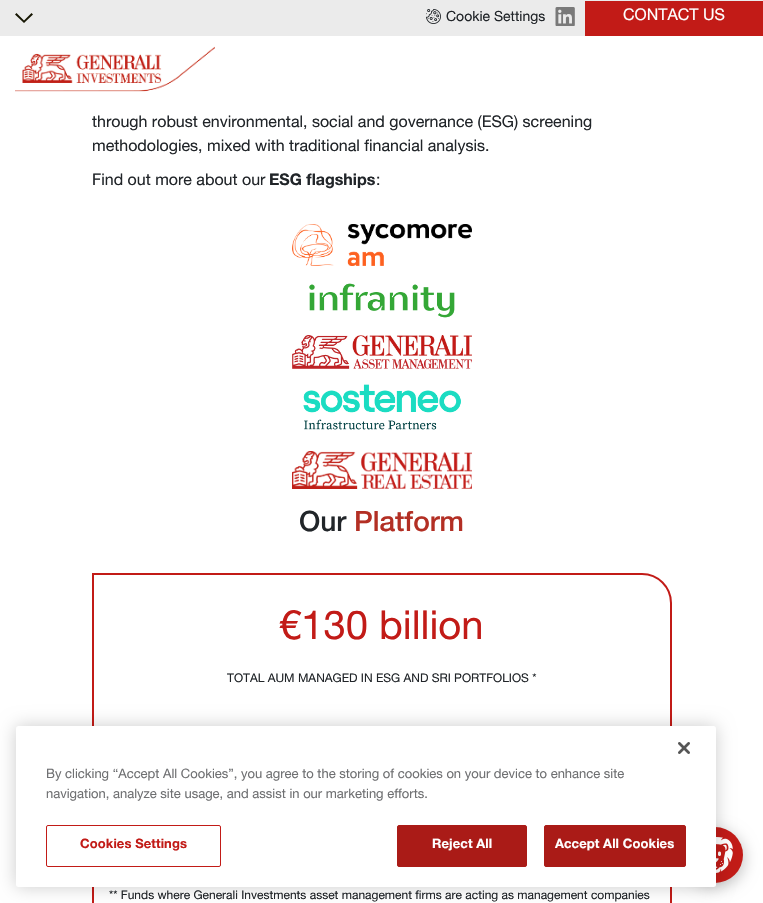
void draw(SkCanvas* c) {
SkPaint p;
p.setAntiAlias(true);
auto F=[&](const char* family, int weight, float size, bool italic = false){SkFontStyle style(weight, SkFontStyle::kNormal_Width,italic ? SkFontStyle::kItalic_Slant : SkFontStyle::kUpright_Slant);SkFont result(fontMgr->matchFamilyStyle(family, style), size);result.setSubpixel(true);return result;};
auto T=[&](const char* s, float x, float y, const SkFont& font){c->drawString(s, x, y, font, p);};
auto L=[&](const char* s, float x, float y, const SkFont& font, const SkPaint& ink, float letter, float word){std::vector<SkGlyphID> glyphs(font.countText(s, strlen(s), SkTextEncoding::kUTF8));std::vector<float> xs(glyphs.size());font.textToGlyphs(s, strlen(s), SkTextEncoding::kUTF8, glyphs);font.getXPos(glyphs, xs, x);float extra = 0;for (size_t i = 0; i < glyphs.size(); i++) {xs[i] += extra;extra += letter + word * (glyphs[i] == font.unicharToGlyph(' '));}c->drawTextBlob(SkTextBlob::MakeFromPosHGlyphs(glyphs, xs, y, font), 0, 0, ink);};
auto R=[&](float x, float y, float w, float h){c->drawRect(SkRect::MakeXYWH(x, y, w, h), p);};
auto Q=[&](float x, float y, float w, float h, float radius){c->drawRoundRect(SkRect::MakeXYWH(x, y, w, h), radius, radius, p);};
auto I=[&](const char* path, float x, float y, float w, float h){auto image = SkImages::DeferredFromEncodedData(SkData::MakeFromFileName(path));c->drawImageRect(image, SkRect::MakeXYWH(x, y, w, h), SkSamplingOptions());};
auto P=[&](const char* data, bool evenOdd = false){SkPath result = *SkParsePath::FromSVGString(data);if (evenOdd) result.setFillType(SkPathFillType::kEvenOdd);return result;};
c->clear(0xffffffff);
p.setColor(0xffebebeb);
R(0,0,763,36);
p.setColor(0xff161602);
c->drawPath(P("M15 14.5l1.5-1.5l7.5 7.5l7.5-7.5l1.5 1.5l-9 8.5z",true),p);
I("1.png",426,9,15,15);
auto f1 = F("Helvetica Neue",400,14);
p.setColor(0xff212529);
T("Cookie Settings",446,21,f1);
I("2.png",555,7,20,19);
p.setColor(0xffc21b17);
R(585,1,178,35);
auto f2 = F("Helvetica Neue",400,16);
p.setColor(0xffffffff);
T("CONTACT US",623,20,f2);
I("3.png",15,46,200,46);
p.setColor(0xff212529);
T("through robust environmental, social and governance (ESG) screening",92,127,f2);
T("methodologies, mixed with traditional financial analysis.",92,151,f2);
T("Find out more about our",92,185,f2);
auto f3 = F("Helvetica Neue",700,16);
T("ESG flagships",269,185,f3);
T(":",376,185,f2);
I("4.png",292,224,180,42);
I("5.png",309,283,146,35);
I("6.png",292,335,180,34);
I("7.png",303,384,158,46);
I("8.png",292,451,180,38);
auto f4 = F("Helvetica Neue",500,28);
T("Our",299,531,f4);
p.setColor(0xffb32f24);
T("Platform",354,531,f4);
p.setStroke(true);
p.setStrokeWidth(2);
p.setColor(0xffc21b17);
c->drawPath(P("M93 574h549c16 0 29 13 29 29v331h-549c-16 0-29-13-29-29z"),p);
auto f5 = F("Helvetica Neue",400,40);
p.setStroke(false);
T("€130 billion",279,639,f5);
auto f6 = F("Helvetica Neue",400,12);
p.setColor(0xff212529);
T("TOTAL AUM MANAGED IN ESG AND SRI PORTFOLIOS *",227,682,f6);
T("** Funds where Generali Investments asset management firms are acting as management companies",109,899,f6);
p.setColor(0x3d000000);
p.setMaskFilter(SkMaskFilter::MakeBlur(kNormal_SkBlurStyle, 7.5));
c->drawRoundRect(SkRect::MakeXYWH(688,831,56,56),28,28,p);
p.setMaskFilter(nullptr);
p.setColor(0xffc21b17);
c->drawCircle(715,855,28,p);
I("10.png",716,837,17,36);
p.setColor(0x33000000);
p.setMaskFilter(SkMaskFilter::MakeBlur(kNormal_SkBlurStyle, 9));
c->drawRoundRect(SkRect::MakeXYWH(16,726,700,161),2.5,2.5,p);
p.setMaskFilter(nullptr);
p.setColor(0xffffffff);
Q(16,726,700,161,2.5);
I("9.png",678,742,12,12);
auto f7 = F("Helvetica Neue",400,13);
p.setColor(0xff6f7072);
T("By clicking “Accept All Cookies”, you agree to the storing of cookies on your device to enhance site",46,778,f7);
T("navigation, analyze site usage, and assist in our marketing efforts.",46,798,f7);
p.setStroke(true);
p.setStrokeWidth(1);
p.setColor(0xffc21b17);
c->drawRoundRect(SkRect::MakeXYWH(46.5,825.5,174,41),1.5,1.5,p);
auto f8 = F("Helvetica Neue",700,13);
p.setStroke(false);
L("Cookies Settings",80,848,f8,p,.1,0);
p.setColor(0xffaa1b17);
c->drawRoundRect(SkRect::MakeXYWH(397.5,825.5,129,41),1.5,1.5,p);
p.setStroke(true);
c->drawRoundRect(SkRect::MakeXYWH(397.5,825.5,129,41),1.5,1.5,p);
p.setStroke(false);
p.setColor(0xffffffff);
L("Reject All",432,848,f8,p,.1,0);
p.setColor(0xffaa1b17);
c->drawRoundRect(SkRect::MakeXYWH(544.5,825.5,141,41),1.5,1.5,p);
p.setStroke(true);
c->drawRoundRect(SkRect::MakeXYWH(544.5,825.5,141,41),1.5,1.5,p);
p.setStroke(false);
p.setColor(0xffffffff);
L("Accept All Cookies",555,848,f8,p,.1,0);
}
